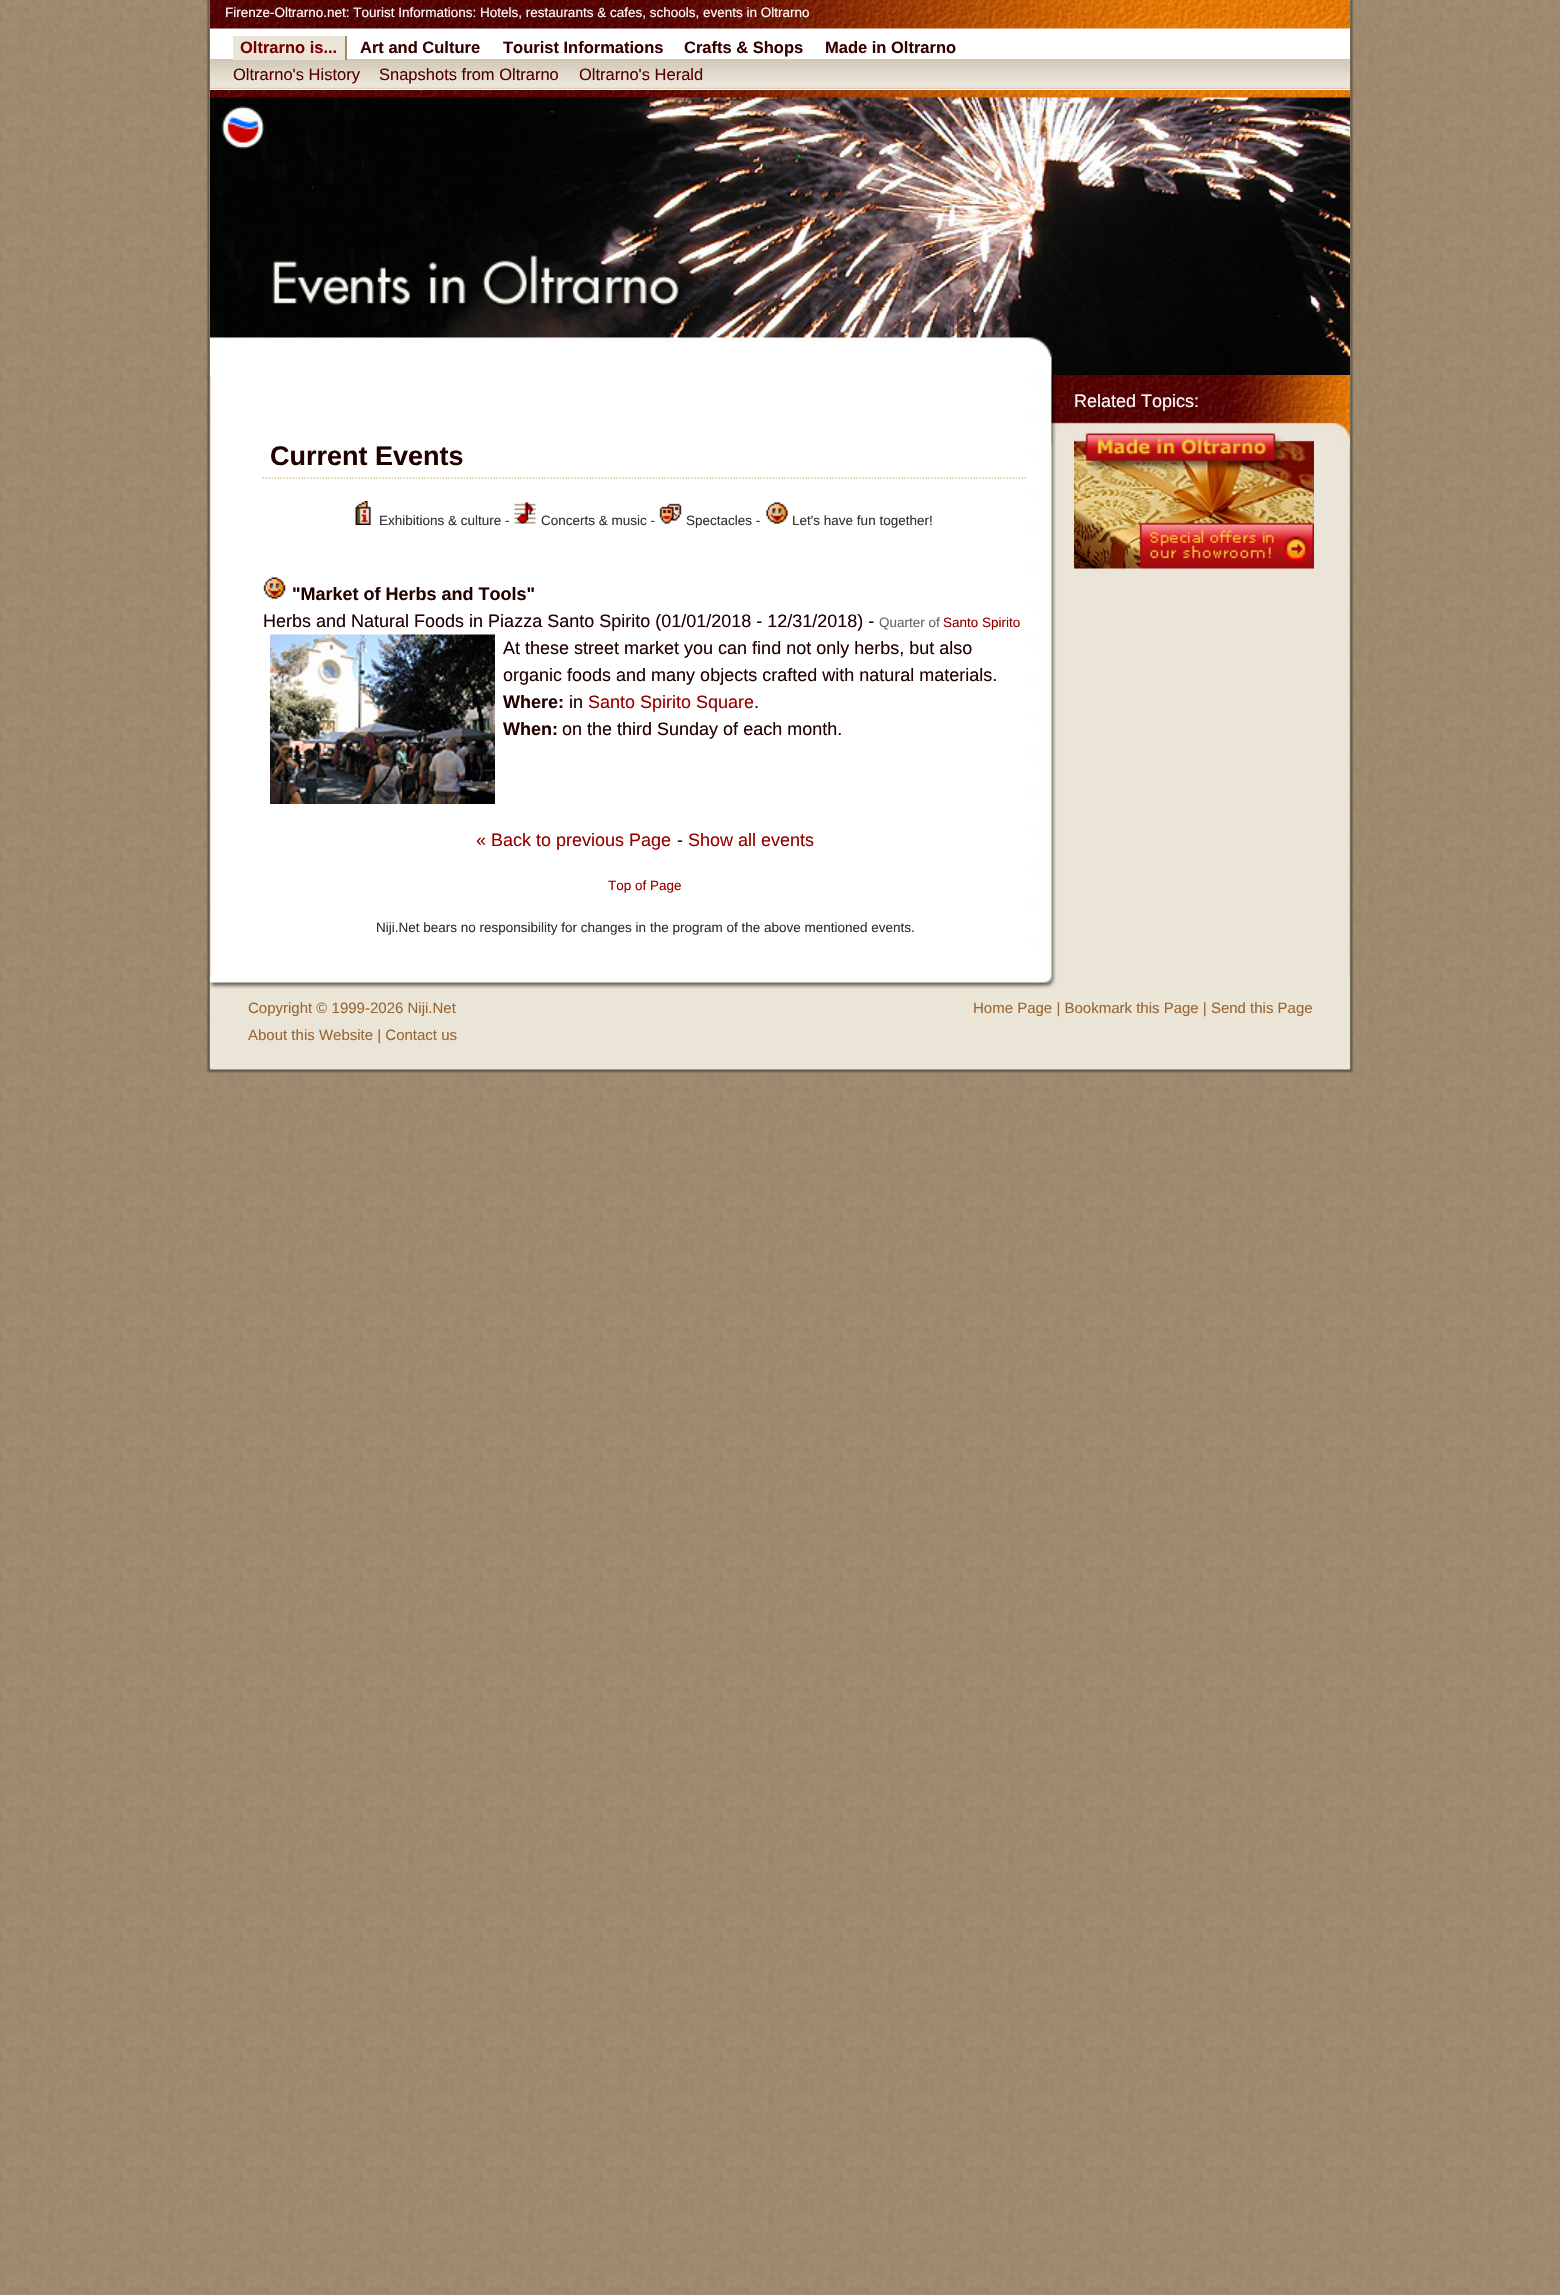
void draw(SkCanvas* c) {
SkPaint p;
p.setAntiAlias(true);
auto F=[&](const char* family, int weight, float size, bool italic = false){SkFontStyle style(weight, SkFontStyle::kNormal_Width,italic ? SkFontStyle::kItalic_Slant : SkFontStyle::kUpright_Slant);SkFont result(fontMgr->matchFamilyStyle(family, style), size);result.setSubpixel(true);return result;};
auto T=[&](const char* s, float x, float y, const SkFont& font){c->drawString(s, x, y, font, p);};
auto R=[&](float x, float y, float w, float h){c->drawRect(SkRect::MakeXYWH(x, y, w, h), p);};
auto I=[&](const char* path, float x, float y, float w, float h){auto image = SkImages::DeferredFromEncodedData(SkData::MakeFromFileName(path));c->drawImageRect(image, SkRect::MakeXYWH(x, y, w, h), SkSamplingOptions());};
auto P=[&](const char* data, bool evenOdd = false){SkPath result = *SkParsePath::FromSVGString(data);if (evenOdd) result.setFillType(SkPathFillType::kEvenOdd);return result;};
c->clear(0xffffffff);
I("1.png",0,0,1560,2295);
I("2.png",202,0,1156,1068);
p.setColor(0xffffffff);
R(210,28,1140,62);
I("3.png",210,0,1140,29);
auto f1 = F("Liberation Sans",400,13.5);
T("Firenze-Oltrarno.net: Tourist Informations: Hotels, restaurants & cafes, schools, events in Oltrarno",225,17,f1);
p.setColor(0xffebe5d8);
R(210,88,1140,1);
I("4.png",210,59,1140,30);
R(233,36,112,24);
p.setColor(0xffa18c71);
R(345,36,2,24);
auto f2 = F("Liberation Sans",700,16.5);
p.setColor(0xff770000);
T("Oltrarno is...",240,53,f2);
p.setColor(0xff330000);
T("Art and Culture",360,53,f2);
T("Tourist Informations",503,53,f2);
T("Crafts & Shops",684,53,f2);
T("Made in Oltrarno",825,53,f2);
auto f3 = F("Liberation Sans",400,16.5);
p.setColor(0xff550000);
T("Oltrarno's History",233,80,f3);
T("Snapshots from Oltrarno",379,80,f3);
T("Oltrarno's Herald",579,80,f3);
I("5.png",210,90,1140,285);
I("6.png",1051,375,299,71);
auto f4 = F("Liberation Sans",400,18);
p.setColor(0xffffffff);
T("Related Topics:",1074,407,f4);
I("7.png",1074,433,240,136);
p.setStroke(true);
p.setStrokeWidth(1.5);
p.setColor(0xffcccc99);
p.setPathEffect(SkDashPathEffect::Make({{1.5f,1.5f}}, 0));
c->drawPath(P("M262.5 478h765"),p);
p.setPathEffect(nullptr);
auto f5 = F("Liberation Sans",700,27);
p.setStroke(false);
p.setColor(0xff220000);
T("Current Events",270,465,f5);
I("8.png",355,501,16,24);
p.setColor(0xff333333);
T("Exhibitions & culture -",379,525,f1);
I("9.png",514,502,22,22);
T("Concerts & music -",541,525,f1);
I("10.png",658,503,24,22);
T("Spectacles -",686,525,f1);
I("11.png",766,502,23,23);
T("Let's have fun together!",792,525,f1);
I("12.png",263,577,24,23);
auto f6 = F("Liberation Sans",700,18);
p.setColor(0xff220000);
T("\"Market of Herbs and Tools\"",292,600,f6);
T("Herbs and Natural Foods in Piazza Santo Spirito (01/01/2018 - 12/31/2018) -",263,627,f4);
p.setColor(0xff666666);
T("Quarter of",879,627,f1);
p.setColor(0xff990000);
T("Santo Spirito",943,627,f1);
I("13.png",270,634,225,170);
p.setColor(0xff220000);
T("At these street market you can find not only herbs, but also",503,654,f4);
T("organic foods and many objects crafted with natural materials.",503,681,f4);
T("Where:",503,708,f6);
T("in",569,708,f4);
p.setColor(0xff990000);
T("Santo Spirito Square",588,708,f4);
p.setColor(0xff220000);
T(".",754,708,f4);
T("When:",503,735,f6);
T("on the third Sunday of each month.",562,735,f4);
p.setColor(0xff990000);
T("« Back to previous Page",476,846,f4);
p.setColor(0xff220000);
T("-",677,846,f4);
p.setColor(0xff990000);
T("Show all events",688,846,f4);
T("Top of Page",608,890,f1);
p.setColor(0xff333333);
T("Niji.Net bears no responsibility for changes in the program of the above mentioned events.",376,932,f1);
p.setColor(0xffebe5d8);
R(210,975,1140,93);
I("14.png",210,975,847,14);
auto f7 = F("Liberation Sans",400,15);
p.setColor(0xff996633);
T("Copyright © 1999-2026 Niji.Net",248,1013,f7);
T("Home Page | Bookmark this Page | Send this Page",973,1013,f7);
T("About this Website | Contact us",248,1040,f7);
I("15.png",203,1068,1153,5);
}
